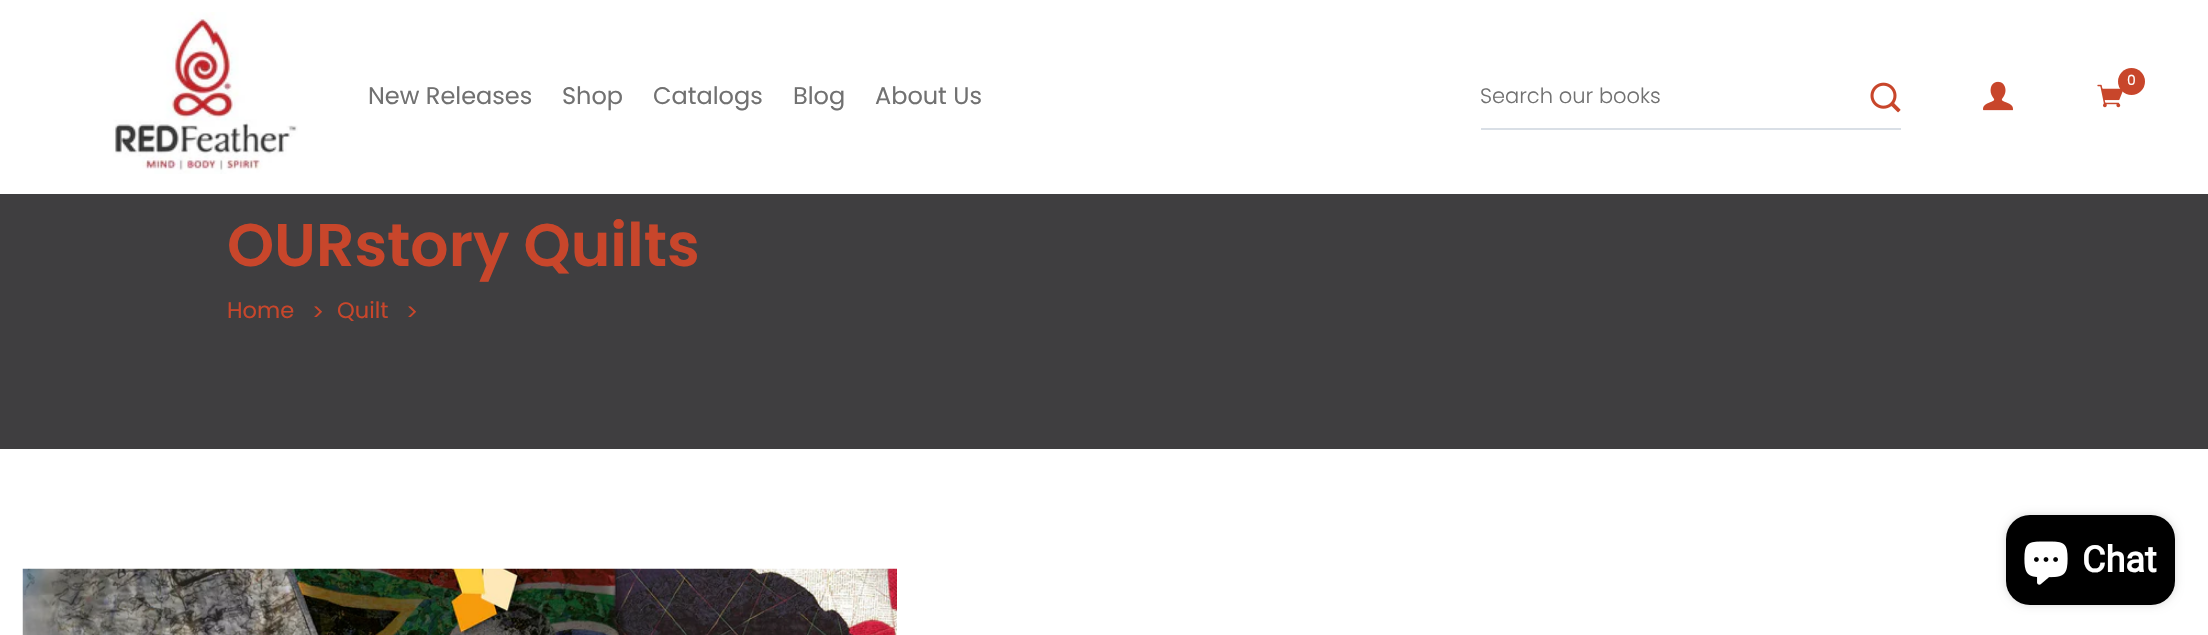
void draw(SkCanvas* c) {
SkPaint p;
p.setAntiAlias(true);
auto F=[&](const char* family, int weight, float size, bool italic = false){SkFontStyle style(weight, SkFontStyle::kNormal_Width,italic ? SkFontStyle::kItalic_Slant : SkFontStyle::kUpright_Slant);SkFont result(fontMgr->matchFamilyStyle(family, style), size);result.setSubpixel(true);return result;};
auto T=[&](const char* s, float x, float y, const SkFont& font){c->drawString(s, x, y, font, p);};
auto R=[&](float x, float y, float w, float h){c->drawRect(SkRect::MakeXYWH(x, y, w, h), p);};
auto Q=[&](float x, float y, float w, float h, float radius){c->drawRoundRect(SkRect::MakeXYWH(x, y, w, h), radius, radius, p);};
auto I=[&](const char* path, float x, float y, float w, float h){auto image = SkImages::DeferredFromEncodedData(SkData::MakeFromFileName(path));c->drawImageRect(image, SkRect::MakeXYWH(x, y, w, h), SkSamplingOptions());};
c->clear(0xffffffff);
I("1.png",113,12,185,162);
auto f1 = F("Poppins",400,24);
p.setColor(0xff717171);
T("New Releases",368,104,f1);
T("Shop",562,104,f1);
T("Catalogs",653,104,f1);
T("Blog",793,104,f1);
T("About Us",875,104,f1);
I("2.png",2097,84,26,24);
p.setColor(0xffc8462b);
c->drawCircle(2131.5,81.5,13.5,p);
auto f2 = F("Poppins",400,14);
p.setColor(0xffffffff);
T("0",2127,85,f2);
p.setColor(0xffd9dfe6);
R(1481,128,420,2);
auto f3 = F("Poppins",300,21);
p.setColor(0xff717171);
T("Search our books",1480,103,f3);
I("3.png",1870,82,31,31);
I("4.png",1983,81,30,30);
p.setColor(0xff3f3e40);
R(0,194,2208,255);
auto f4 = F("Poppins",600,60);
p.setColor(0xffc8462b);
T("OURstory Quilts",227,266,f4);
auto f5 = F("Poppins",400,22.5);
T("Home",227,318,f5);
T(">",312,320,f5);
T("Quilt",337,318,f5);
T(">",406,320,f5);
I("5.png",22,568,875,67);
p.setColor(0x26000000);
p.setMaskFilter(SkMaskFilter::MakeBlur(kNormal_SkBlurStyle, 4));
c->drawRoundRect(SkRect::MakeXYWH(2006,515,169,90),24,24,p);
p.setMaskFilter(nullptr);
p.setColor(0xff000000);
Q(2006,515,169,90,24);
I("6.png",2024,541,44,44);
auto f6 = F("Roboto",700,36);
p.setColor(0xffffffff);
T("Chat",2082,572,f6);
}
